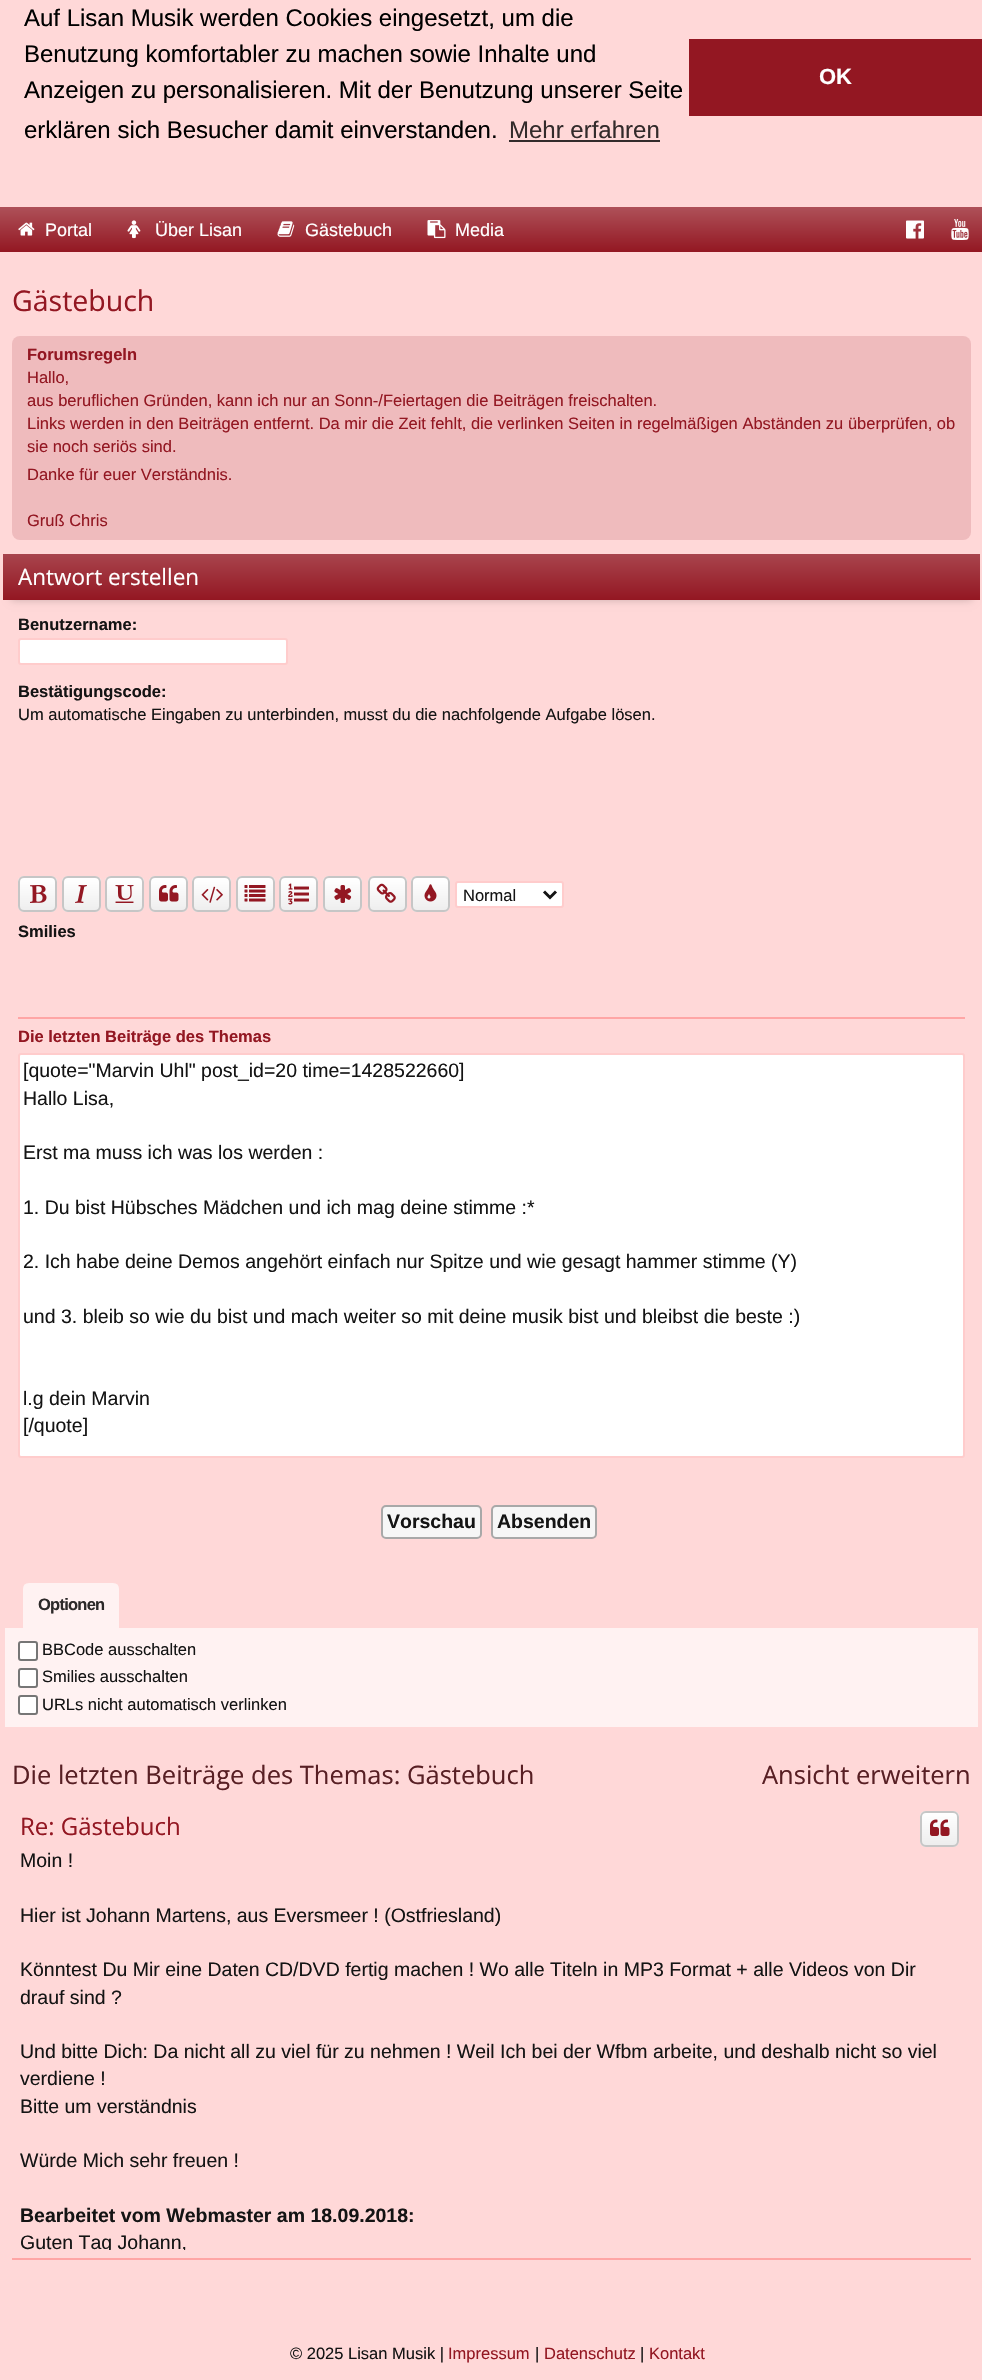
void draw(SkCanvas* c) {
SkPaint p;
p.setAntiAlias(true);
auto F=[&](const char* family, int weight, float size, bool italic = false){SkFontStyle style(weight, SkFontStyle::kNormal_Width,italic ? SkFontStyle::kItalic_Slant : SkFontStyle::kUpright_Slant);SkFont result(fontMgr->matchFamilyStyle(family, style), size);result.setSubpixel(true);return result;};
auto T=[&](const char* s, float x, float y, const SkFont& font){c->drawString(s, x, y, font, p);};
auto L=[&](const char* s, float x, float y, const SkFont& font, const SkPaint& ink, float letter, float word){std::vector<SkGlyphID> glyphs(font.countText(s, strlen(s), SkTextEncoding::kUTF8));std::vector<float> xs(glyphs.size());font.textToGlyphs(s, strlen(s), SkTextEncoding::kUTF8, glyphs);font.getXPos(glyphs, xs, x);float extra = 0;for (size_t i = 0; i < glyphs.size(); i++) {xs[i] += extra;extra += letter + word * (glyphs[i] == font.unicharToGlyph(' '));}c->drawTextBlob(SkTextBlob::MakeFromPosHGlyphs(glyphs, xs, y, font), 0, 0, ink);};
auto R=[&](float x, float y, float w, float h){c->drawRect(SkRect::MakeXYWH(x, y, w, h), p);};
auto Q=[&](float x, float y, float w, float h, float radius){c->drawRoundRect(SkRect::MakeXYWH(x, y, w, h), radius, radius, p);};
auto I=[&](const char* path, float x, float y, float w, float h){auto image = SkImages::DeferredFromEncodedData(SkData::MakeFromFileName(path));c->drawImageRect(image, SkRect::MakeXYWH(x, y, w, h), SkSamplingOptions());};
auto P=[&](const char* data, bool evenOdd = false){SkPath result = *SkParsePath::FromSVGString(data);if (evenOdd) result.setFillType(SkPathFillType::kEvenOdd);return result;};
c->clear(0xffffd8d8);
auto f1 = F("Liberation Sans",400,24);
p.setColor(0xff000000);
T("Auf Lisan Musik werden Cookies eingesetzt, um die",24,26,f1);
T("Benutzung komfortabler zu machen sowie Inhalte und",24,62,f1);
T("Anzeigen zu personalisieren. Mit der Benutzung unserer Seite",24,98,f1);
T("erklären sich Besucher damit einverstanden.",24,138,f1);
p.setColor(0xff332b2b);
T("Mehr erfahren",509,138,f1);
R(509,140,151,2);
p.setColor(0xff931722);
R(689,39,293,77);
auto f2 = F("Liberation Sans",700,22);
p.setColor(0xffffffff);
T("OK",819,84,f2);
{
const SkColor colors[] = {0xffae5159,0xff931722};
const float stops[] = {0,1};
const SkPoint ends[] = {{491,207}, {491,252}};
p.setShader(SkGradientShader::MakeLinear(ends, colors, stops, 2, SkTileMode::kClamp));
p.setAlpha(255);
}
R(0,207,982,45);
I("1.png",18,222,17,14);
auto f3 = F("Liberation Sans",400,18);
p.setShader(nullptr);
p.setColor(0xffffffff);
T("Portal",45,236,f3);
I("2.png",127,220,14,19);
T("Über Lisan",155,236,f3);
I("3.png",277,221,18,16);
T("Gästebuch",305,236,f3);
I("4.png",427,220,19,19);
T("Media",455,236,f3);
I("5.png",906,220,18,19);
I("6.png",951,219,18,21);
auto f4 = F("Open Sans",400,28.5);
p.setColor(0xff931722);
T("Gästebuch",12,311,f4);
p.setColor(0xffefbbbd);
Q(12,336,959,204,8);
auto f5 = F("Liberation Sans",700,16.5);
p.setColor(0xff931722);
T("Forumsregeln",27,360,f5);
auto f6 = F("Liberation Sans",400,16.5);
T("Hallo,",27,383,f6);
T("aus beruflichen Gründen, kann ich nur an Sonn-/Feiertagen die Beiträgen freischalten.",27,406,f6);
T("Links werden in den Beiträgen entfernt. Da mir die Zeit fehlt, die verlinken Seiten in regelmäßigen Abständen zu überprüfen, ob",27,429,f6);
T("sie noch seriös sind.",27,452,f6);
T("Danke für euer Verständnis.",27,480,f6);
T("Gruß Chris",27,526,f6);
p.setColor(0x33000000);
p.setMaskFilter(SkMaskFilter::MakeBlur(kNormal_SkBlurStyle, 4));
c->drawRect(SkRect::MakeXYWH(11,569,961,31),p);
p.setMaskFilter(nullptr);
{
const SkColor colors[] = {0xffa9454e,0xff931722};
const float stops[] = {0,1};
const SkPoint ends[] = {{491,553}, {491,600}};
p.setShader(SkGradientShader::MakeLinear(ends, colors, stops, 2, SkTileMode::kClamp));
p.setAlpha(255);
}
R(3,554,977,46);
auto f7 = F("Open Sans",400,22.5);
p.setShader(nullptr);
p.setColor(0xffffffff);
T("Antwort erstellen",18,585,f7);
p.setColor(0xff141414);
T("Benutzername:",18,630,f5);
p.setColor(0xffffffff);
c->drawRoundRect(SkRect::MakeXYWH(19,639,268,25),2,2,p);
p.setStroke(true);
p.setStrokeWidth(2);
p.setColor(0xffffcccc);
c->drawRoundRect(SkRect::MakeXYWH(19,639,268,25),2,2,p);
p.setStroke(false);
p.setColor(0xff141414);
T("Bestätigungscode:",18,697,f5);
T("Um automatische Eingaben zu unterbinden, musst du die nachfolgende Aufgabe lösen.",18,720,f6);
p.setColor(0xffeeeeee);
Q(18,876,39,36,6);
c->save();
c->clipPath(P("M24 876h27c3.5 0 6 2.5 6 6v24c0 3.5-2.5 6-6 6h-27c-3.5 0-6-2.5-6-6v-24c0-3.5 2.5-6 6-6z"),true);
{
const SkColor colors[] = {0xffffffff,0x00ffffff};
const float stops[] = {0,1};
const SkPoint ends[] = {{38,878}, {38,911}};
p.setShader(SkGradientShader::MakeLinear(ends, colors, stops, 2, SkTileMode::kClamp));
p.setAlpha(255);
}
R(18,878,39,32);
c->restore();
p.setStroke(true);
p.setShader(nullptr);
p.setColor(0xffc6c6c6);
c->drawRoundRect(SkRect::MakeXYWH(19,877,37,34),5,5,p);
I("7.png",30,885,17,18);
p.setStroke(false);
p.setColor(0xffeeeeee);
Q(62,876,39,36,6);
c->save();
c->clipPath(P("M68 876h27c3.5 0 6 2.5 6 6v24c0 3.5-2.5 6-6 6h-27c-3.5 0-6-2.5-6-6v-24c0-3.5 2.5-6 6-6z"),true);
{
const SkColor colors[] = {0xffffffff,0x00ffffff};
const float stops[] = {0,1};
const SkPoint ends[] = {{81,878}, {81,911}};
p.setShader(SkGradientShader::MakeLinear(ends, colors, stops, 2, SkTileMode::kClamp));
p.setAlpha(255);
}
R(62,878,39,32);
c->restore();
p.setStroke(true);
p.setShader(nullptr);
p.setColor(0xffc6c6c6);
c->drawRoundRect(SkRect::MakeXYWH(63,877,37,34),5,5,p);
I("8.png",75,885,12,18);
p.setStroke(false);
p.setColor(0xffeeeeee);
Q(105,876,39,36,6);
c->save();
c->clipPath(P("M111 876h27c3.5 0 6 2.5 6 6v24c0 3.5-2.5 6-6 6h-27c-3.5 0-6-2.5-6-6v-24c0-3.5 2.5-6 6-6z"),true);
{
const SkColor colors[] = {0xffffffff,0x00ffffff};
const float stops[] = {0,1};
const SkPoint ends[] = {{125,878}, {125,911}};
p.setShader(SkGradientShader::MakeLinear(ends, colors, stops, 2, SkTileMode::kClamp));
p.setAlpha(255);
}
R(105,878,39,32);
c->restore();
p.setStroke(true);
p.setShader(nullptr);
p.setColor(0xffc6c6c6);
c->drawRoundRect(SkRect::MakeXYWH(106,877,37,34),5,5,p);
I("9.png",115,885,19,18);
p.setStroke(false);
p.setColor(0xffeeeeee);
Q(149,876,39,36,6);
c->save();
c->clipPath(P("M155 876h27c3.5 0 6 2.5 6 6v24c0 3.5-2.5 6-6 6h-27c-3.5 0-6-2.5-6-6v-24c0-3.5 2.5-6 6-6z"),true);
{
const SkColor colors[] = {0xffffffff,0x00ffffff};
const float stops[] = {0,1};
const SkPoint ends[] = {{168,878}, {168,911}};
p.setShader(SkGradientShader::MakeLinear(ends, colors, stops, 2, SkTileMode::kClamp));
p.setAlpha(255);
}
R(149,878,39,32);
c->restore();
p.setStroke(true);
p.setShader(nullptr);
p.setColor(0xffc6c6c6);
c->drawRoundRect(SkRect::MakeXYWH(150,877,37,34),5,5,p);
I("10.png",159,885,20,17);
p.setStroke(false);
p.setColor(0xffeeeeee);
Q(192,876,39,36,6);
c->save();
c->clipPath(P("M198 876h27c3.5 0 6 2.5 6 6v24c0 3.5-2.5 6-6 6h-27c-3.5 0-6-2.5-6-6v-24c0-3.5 2.5-6 6-6z"),true);
{
const SkColor colors[] = {0xffffffff,0x00ffffff};
const float stops[] = {0,1};
const SkPoint ends[] = {{212,878}, {212,911}};
p.setShader(SkGradientShader::MakeLinear(ends, colors, stops, 2, SkTileMode::kClamp));
p.setAlpha(255);
}
R(192,878,39,32);
c->restore();
p.setStroke(true);
p.setShader(nullptr);
p.setColor(0xffc6c6c6);
c->drawRoundRect(SkRect::MakeXYWH(193,877,37,34),5,5,p);
I("11.png",201,886,22,17);
p.setStroke(false);
p.setColor(0xffeeeeee);
Q(236,876,39,36,6);
c->save();
c->clipPath(P("M242 876h27c3.5 0 6 2.5 6 6v24c0 3.5-2.5 6-6 6h-27c-3.5 0-6-2.5-6-6v-24c0-3.5 2.5-6 6-6z"),true);
{
const SkColor colors[] = {0xffffffff,0x00ffffff};
const float stops[] = {0,1};
const SkPoint ends[] = {{255,878}, {255,911}};
p.setShader(SkGradientShader::MakeLinear(ends, colors, stops, 2, SkTileMode::kClamp));
p.setAlpha(255);
}
R(236,878,39,32);
c->restore();
p.setStroke(true);
p.setShader(nullptr);
p.setColor(0xffc6c6c6);
c->drawRoundRect(SkRect::MakeXYWH(237,877,37,34),5,5,p);
I("12.png",244,885,22,17);
p.setStroke(false);
p.setColor(0xffeeeeee);
Q(279,876,39,36,6);
c->save();
c->clipPath(P("M285 876h27c3.5 0 6 2.5 6 6v24c0 3.5-2.5 6-6 6h-27c-3.5 0-6-2.5-6-6v-24c0-3.5 2.5-6 6-6z"),true);
{
const SkColor colors[] = {0xffffffff,0x00ffffff};
const float stops[] = {0,1};
const SkPoint ends[] = {{299,878}, {299,911}};
p.setShader(SkGradientShader::MakeLinear(ends, colors, stops, 2, SkTileMode::kClamp));
p.setAlpha(255);
}
R(279,878,39,32);
c->restore();
p.setStroke(true);
p.setShader(nullptr);
p.setColor(0xffc6c6c6);
c->drawRoundRect(SkRect::MakeXYWH(280,877,37,34),5,5,p);
I("13.png",288,883,21,22);
p.setStroke(false);
p.setColor(0xffeeeeee);
Q(323,876,39,36,6);
c->save();
c->clipPath(P("M329 876h27c3.5 0 6 2.5 6 6v24c0 3.5-2.5 6-6 6h-27c-3.5 0-6-2.5-6-6v-24c0-3.5 2.5-6 6-6z"),true);
{
const SkColor colors[] = {0xffffffff,0x00ffffff};
const float stops[] = {0,1};
const SkPoint ends[] = {{342,878}, {342,911}};
p.setShader(SkGradientShader::MakeLinear(ends, colors, stops, 2, SkTileMode::kClamp));
p.setAlpha(255);
}
R(323,878,39,32);
c->restore();
p.setStroke(true);
p.setShader(nullptr);
p.setColor(0xffc6c6c6);
c->drawRoundRect(SkRect::MakeXYWH(324,877,37,34),5,5,p);
I("14.png",334,885,18,18);
p.setStroke(false);
p.setColor(0xffeeeeee);
Q(368,876,39,36,6);
c->save();
c->clipPath(P("M374 876h27c3.5 0 6 2.5 6 6v24c0 3.5-2.5 6-6 6h-27c-3.5 0-6-2.5-6-6v-24c0-3.5 2.5-6 6-6z"),true);
{
const SkColor colors[] = {0xffffffff,0x00ffffff};
const float stops[] = {0,1};
const SkPoint ends[] = {{387,878}, {387,911}};
p.setShader(SkGradientShader::MakeLinear(ends, colors, stops, 2, SkTileMode::kClamp));
p.setAlpha(255);
}
R(368,878,39,32);
c->restore();
p.setStroke(true);
p.setShader(nullptr);
p.setColor(0xffc6c6c6);
c->drawRoundRect(SkRect::MakeXYWH(369,877,37,34),5,5,p);
I("15.png",376,883,20,20);
p.setStroke(false);
p.setColor(0xffeeeeee);
Q(411,876,39,36,6);
c->save();
c->clipPath(P("M417 876h27c3.5 0 6 2.5 6 6v24c0 3.5-2.5 6-6 6h-27c-3.5 0-6-2.5-6-6v-24c0-3.5 2.5-6 6-6z"),true);
{
const SkColor colors[] = {0xffffffff,0x00ffffff};
const float stops[] = {0,1};
const SkPoint ends[] = {{431,878}, {431,911}};
p.setShader(SkGradientShader::MakeLinear(ends, colors, stops, 2, SkTileMode::kClamp));
p.setAlpha(255);
}
R(411,878,39,32);
c->restore();
p.setStroke(true);
p.setShader(nullptr);
p.setColor(0xffc6c6c6);
c->drawRoundRect(SkRect::MakeXYWH(412,877,37,34),5,5,p);
I("16.png",424,884,13,18);
p.setStroke(false);
p.setColor(0xffffffff);
c->drawRoundRect(SkRect::MakeXYWH(456,882,107,25),2,2,p);
p.setStroke(true);
p.setColor(0xffffcccc);
c->drawRoundRect(SkRect::MakeXYWH(456,882,107,25),2,2,p);
p.setStrokeWidth(3);
p.setColor(0xff141414);
c->drawPath(P("M544 891.5l6 6l6-6"),p);
p.setStroke(false);
T("Normal",463,901,f6);
T("Smilies",18,937,f5);
p.setColor(0xffffa5a5);
R(18,1017,947,2);
p.setColor(0xff931722);
T("Die letzten Beiträge des Themas",18,1042,f5);
p.setColor(0xffffffff);
c->drawRoundRect(SkRect::MakeXYWH(19,1054,945,403),2,2,p);
p.setStroke(true);
p.setStrokeWidth(2);
p.setColor(0xffffcccc);
c->drawRoundRect(SkRect::MakeXYWH(19,1054,945,403),2,2,p);
auto f8 = F("Liberation Sans",400,19.5);
p.setStroke(false);
p.setColor(0xff141414);
T("[quote=\"Marvin Uhl\" post_id=20 time=1428522660]",23,1077,f8);
T("Hallo Lisa,",23,1105,f8);
T("Erst ma muss ich was los werden :",23,1159,f8);
T("1. Du bist Hübsches Mädchen und ich mag deine stimme :*",23,1214,f8);
T("2. Ich habe deine Demos angehört einfach nur Spitze und wie gesagt hammer stimme (Y)",23,1268,f8);
T("und 3. bleib so wie du bist und mach weiter so mit deine musik bist und bleibst die beste :)",23,1323,f8);
T("l.g dein Marvin",23,1405,f8);
T("[/quote]",23,1432,f8);
p.setColor(0xfff6f6f6);
c->drawRoundRect(SkRect::MakeXYWH(382,1506,99,32),4,4,p);
p.setStroke(true);
p.setColor(0xffa8a8a8);
c->drawRoundRect(SkRect::MakeXYWH(382,1506,99,32),4,4,p);
auto f9 = F("Liberation Sans",700,19.5);
p.setStroke(false);
p.setColor(0xff141414);
T("Vorschau",387,1528,f9);
p.setColor(0xfff6f6f6);
c->drawRoundRect(SkRect::MakeXYWH(492,1506,104,32),4,4,p);
p.setStroke(true);
p.setColor(0xffa8a8a8);
c->drawRoundRect(SkRect::MakeXYWH(492,1506,104,32),4,4,p);
p.setStroke(false);
p.setColor(0xff141414);
T("Absenden",497,1528,f9);
p.setColor(0xfffff2f2);
c->drawPath(P("M29 1584h84c3 0 5 2 5 5v38h-94v-38c0-3 2-5 5-5z"),p);
p.setStroke(true);
c->drawPath(P("M29 1584h84c3 0 5 2 5 5v38h-94v-38c0-3 2-5 5-5z"),p);
p.setStroke(false);
p.setColor(0xff2c2929);
L("Optionen",38,1610,f5,p,-.75,0);
p.setColor(0xfffff2f2);
R(5,1628,973,99);
p.setColor(0xffffffff);
c->drawRoundRect(SkRect::MakeXYWH(19,1642,18,18),2,2,p);
p.setStroke(true);
p.setColor(0xff767676);
c->drawRoundRect(SkRect::MakeXYWH(19,1642,18,18),2,2,p);
p.setStroke(false);
p.setColor(0xff141414);
T("BBCode ausschalten",42,1655,f6);
p.setColor(0xffffffff);
c->drawRoundRect(SkRect::MakeXYWH(19,1669,18,18),2,2,p);
p.setStroke(true);
p.setColor(0xff767676);
c->drawRoundRect(SkRect::MakeXYWH(19,1669,18,18),2,2,p);
p.setStroke(false);
p.setColor(0xff141414);
T("Smilies ausschalten",42,1682,f6);
p.setColor(0xffffffff);
c->drawRoundRect(SkRect::MakeXYWH(19,1696,18,18),2,2,p);
p.setStroke(true);
p.setColor(0xff767676);
c->drawRoundRect(SkRect::MakeXYWH(19,1696,18,18),2,2,p);
p.setStroke(false);
p.setColor(0xff141414);
T("URLs nicht automatisch verlinken",42,1710,f6);
auto f10 = F("Open Sans",400,25.5);
p.setColor(0xff581f24);
T("Die letzten Beiträge des Themas: Gästebuch",12,1784,f10);
T("Ansicht erweitern",762,1784,f10);
auto f11 = F("Open Sans",400,24);
p.setColor(0xff931722);
T("Re: Gästebuch",20,1835,f11);
p.setColor(0xffeeeeee);
Q(920,1811,39,36,6);
c->save();
c->clipPath(P("M926 1811h27c3.5 0 6 2.5 6 6v24c0 3.5-2.5 6-6 6h-27c-3.5 0-6-2.5-6-6v-24c0-3.5 2.5-6 6-6z"),true);
{
const SkColor colors[] = {0xffffffff,0x00ffffff};
const float stops[] = {0,1};
const SkPoint ends[] = {{939,1812}, {939,1845}};
p.setShader(SkGradientShader::MakeLinear(ends, colors, stops, 2, SkTileMode::kClamp));
p.setAlpha(255);
}
R(920,1812,39,32);
c->restore();
p.setStroke(true);
p.setShader(nullptr);
p.setColor(0xffc6c6c6);
c->drawRoundRect(SkRect::MakeXYWH(921,1812,37,34),5,5,p);
I("17.png",930,1819,20,17);
p.setStroke(false);
p.setColor(0xff141414);
T("Moin !",20,1867,f8);
T("Hier ist Johann Martens, aus Eversmeer ! (Ostfriesland)",20,1922,f8);
T("Könntest Du Mir eine Daten CD/DVD fertig machen ! Wo alle Titeln in MP3 Format + alle Videos von Dir",20,1976,f8);
T("drauf sind ?",20,2004,f8);
T("Und bitte Dich: Da nicht all zu viel für zu nehmen ! Weil Ich bei der Wfbm arbeite, und deshalb nicht so viel",20,2058,f8);
T("verdiene !",20,2085,f8);
T("Bitte um verständnis",20,2113,f8);
T("Würde Mich sehr freuen !",20,2167,f8);
T("Bearbeitet vom Webmaster am 18.09.2018:",20,2222,f9);
c->save();
c->clipRect(SkRect::MakeXYWH(20,1848,943,402));
T("Guten Tag Johann,",20,2249,f8);
c->restore();
p.setColor(0xffffa5a5);
R(12,2258,959,2);
p.setColor(0xff141414);
T("© 2025 Lisan Musik |",290,2359,f6);
p.setColor(0xff931722);
T("Impressum",448,2359,f6);
p.setColor(0xff141414);
T("|",535,2359,f6);
p.setColor(0xff931722);
T("Datenschutz",544,2359,f6);
p.setColor(0xff141414);
T("|",640,2359,f6);
p.setColor(0xff931722);
T("Kontakt",649,2359,f6);
}
